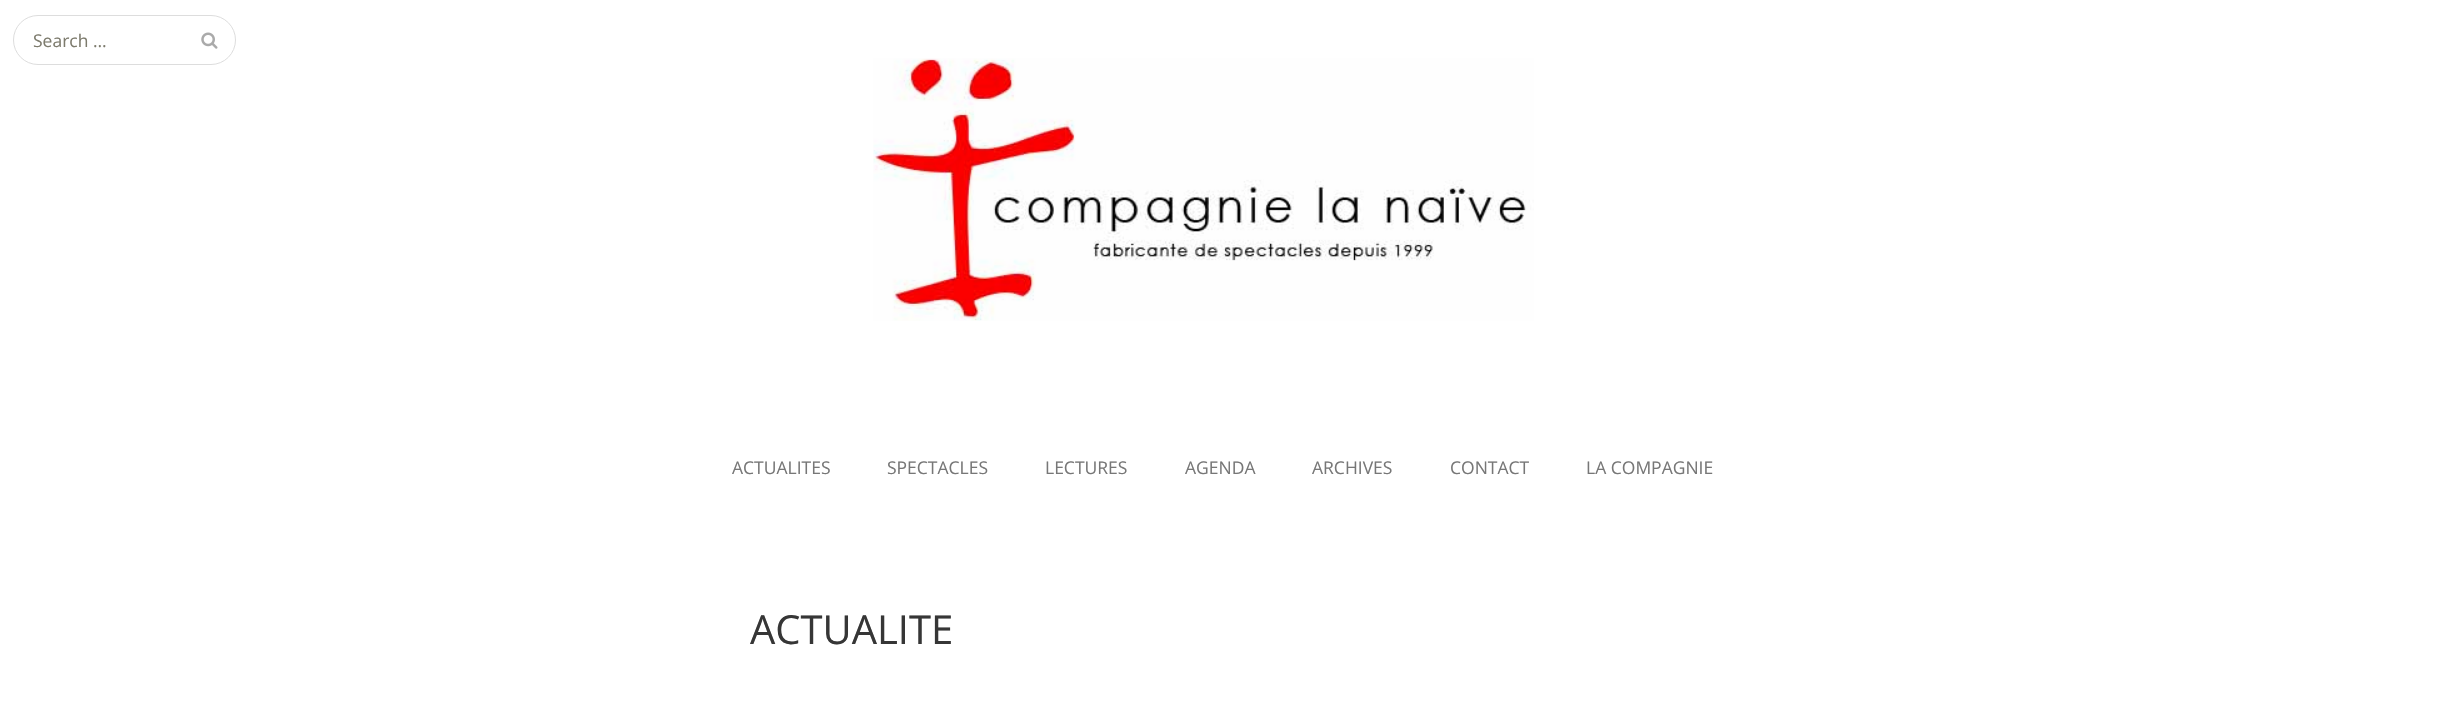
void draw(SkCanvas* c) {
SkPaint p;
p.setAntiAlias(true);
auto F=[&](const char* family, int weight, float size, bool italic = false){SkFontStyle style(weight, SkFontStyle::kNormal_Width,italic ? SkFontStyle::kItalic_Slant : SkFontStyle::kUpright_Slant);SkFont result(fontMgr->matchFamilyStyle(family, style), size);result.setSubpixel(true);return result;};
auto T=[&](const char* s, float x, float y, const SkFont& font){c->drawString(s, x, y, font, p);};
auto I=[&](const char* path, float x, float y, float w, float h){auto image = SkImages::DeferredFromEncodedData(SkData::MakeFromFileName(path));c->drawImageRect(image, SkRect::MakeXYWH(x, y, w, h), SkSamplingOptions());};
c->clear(0xffffffff);
p.setStroke(true);
p.setStrokeWidth(1);
p.setColor(0xffdddddd);
c->drawRoundRect(SkRect::MakeXYWH(13.5,15.5,222,49),24.5,24.5,p);
auto f1 = F("Open Sans",400,17.5);
p.setStroke(false);
p.setColor(0xff7d7b6d);
T("Search …",33,47,f1);
I("1.png",201,32,17,17);
I("2.png",873,58,661,263);
p.setColor(0xff777777);
T("ACTUALITES",732,474,f1);
T("SPECTACLES",887,474,f1);
T("LECTURES",1045,474,f1);
T("AGENDA",1185,474,f1);
T("ARCHIVES",1312,474,f1);
T("CONTACT",1450,474,f1);
T("LA COMPAGNIE",1586,474,f1);
auto f2 = F("Open Sans",400,40);
p.setColor(0xff363636);
T("ACTUALITE",750,644,f2);
}
